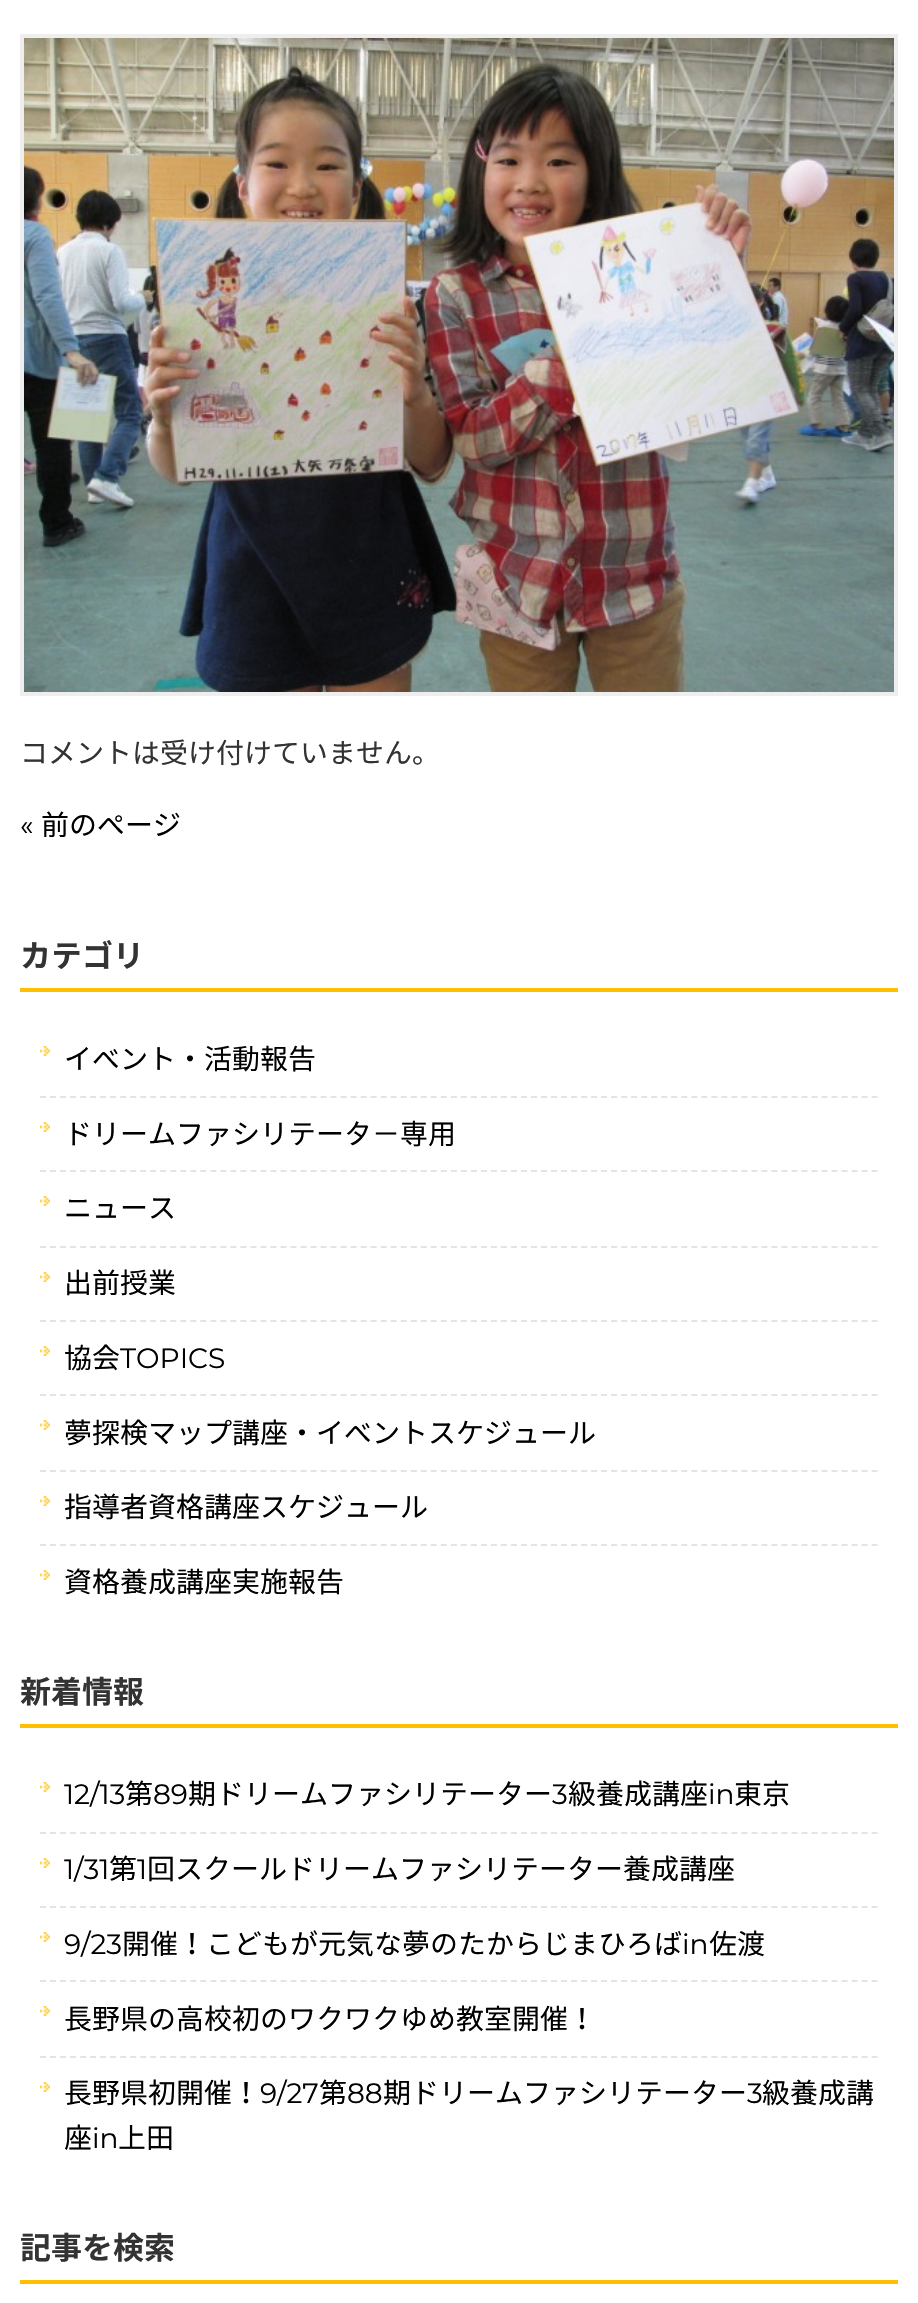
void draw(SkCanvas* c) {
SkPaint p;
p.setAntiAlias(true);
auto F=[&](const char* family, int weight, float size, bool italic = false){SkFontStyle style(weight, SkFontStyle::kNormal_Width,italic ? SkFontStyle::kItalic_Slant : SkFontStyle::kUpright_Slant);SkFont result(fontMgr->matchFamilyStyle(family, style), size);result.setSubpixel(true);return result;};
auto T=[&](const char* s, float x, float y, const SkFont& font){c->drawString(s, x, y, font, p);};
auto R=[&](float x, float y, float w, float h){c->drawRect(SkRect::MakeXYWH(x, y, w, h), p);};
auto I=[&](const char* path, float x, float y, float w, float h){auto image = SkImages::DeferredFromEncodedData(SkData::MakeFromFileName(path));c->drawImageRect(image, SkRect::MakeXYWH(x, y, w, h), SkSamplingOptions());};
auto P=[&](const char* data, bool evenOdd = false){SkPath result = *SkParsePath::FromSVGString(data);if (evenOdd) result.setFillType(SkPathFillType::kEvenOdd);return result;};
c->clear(0xffffffff);
p.setStroke(true);
p.setStrokeWidth(4);
p.setColor(0xffeeeeee);
c->drawRect(SkRect::MakeXYWH(22,36,874,658),p);
I("1.png",24,38,870,654);
auto f1 = F("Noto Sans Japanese",400,28);
p.setStroke(false);
p.setColor(0xff333333);
T("コメントは受け付けていません。",20,763,f1);
auto f2 = F("Montserrat",400,28);
p.setColor(0xff000000);
T("«",20,835,f2);
T("前のページ",41,835,f1);
p.setColor(0xffffbf00);
R(20,988,878,4);
auto f3 = F("Noto Sans Japanese",700,31);
p.setColor(0xff333333);
T("カテゴリ",20,967,f3);
I("2.png",40,1046,10,10);
p.setStroke(true);
p.setStrokeWidth(2);
p.setColor(0xffe4e4e4);
p.setPathEffect(SkDashPathEffect::Make({{6,4.02f}}, 0));
c->drawPath(P("M40 1097h838"),p);
p.setPathEffect(nullptr);
p.setStroke(false);
p.setColor(0xff000000);
T("イベント・活動報告",64,1069,f1);
I("2.png",40,1122,10,10);
p.setStroke(true);
p.setColor(0xffe4e4e4);
p.setPathEffect(SkDashPathEffect::Make({{6,4.02f}}, 0));
c->drawPath(P("M40 1171h838"),p);
p.setPathEffect(nullptr);
p.setStroke(false);
p.setColor(0xff000000);
T("ドリームファシリテータ－専用",64,1144,f1);
I("2.png",40,1196,10,10);
p.setStroke(true);
p.setColor(0xffe4e4e4);
p.setPathEffect(SkDashPathEffect::Make({{6,4.02f}}, 0));
c->drawPath(P("M40 1247h838"),p);
p.setPathEffect(nullptr);
p.setStroke(false);
p.setColor(0xff000000);
T("ニュース",64,1218,f1);
I("2.png",40,1272,10,10);
p.setStroke(true);
p.setColor(0xffe4e4e4);
p.setPathEffect(SkDashPathEffect::Make({{6,4.02f}}, 0));
c->drawPath(P("M40 1321h838"),p);
p.setPathEffect(nullptr);
p.setStroke(false);
p.setColor(0xff000000);
T("出前授業",64,1293,f1);
I("2.png",40,1346,10,10);
p.setStroke(true);
p.setColor(0xffe4e4e4);
p.setPathEffect(SkDashPathEffect::Make({{6,4.02f}}, 0));
c->drawPath(P("M40 1395h838"),p);
p.setPathEffect(nullptr);
p.setStroke(false);
p.setColor(0xff000000);
T("協会",64,1368,f1);
T("TOPICS",120,1368,f2);
I("2.png",40,1420,10,10);
p.setStroke(true);
p.setColor(0xffe4e4e4);
p.setPathEffect(SkDashPathEffect::Make({{6,4.02f}}, 0));
c->drawPath(P("M40 1471h838"),p);
p.setPathEffect(nullptr);
p.setStroke(false);
p.setColor(0xff000000);
T("夢探検マップ講座・イベントスケジュール",64,1443,f1);
I("2.png",40,1496,10,10);
p.setStroke(true);
p.setColor(0xffe4e4e4);
p.setPathEffect(SkDashPathEffect::Make({{6,4.02f}}, 0));
c->drawPath(P("M40 1545h838"),p);
p.setPathEffect(nullptr);
p.setStroke(false);
p.setColor(0xff000000);
T("指導者資格講座スケジュール",64,1517,f1);
I("2.png",40,1570,10,10);
T("資格養成講座実施報告",64,1592,f1);
p.setColor(0xffffbf00);
R(20,1724,878,4);
p.setColor(0xff333333);
T("新着情報",20,1703,f3);
I("2.png",40,1782,10,10);
p.setStroke(true);
p.setColor(0xffe4e4e4);
p.setPathEffect(SkDashPathEffect::Make({{6,4.02f}}, 0));
c->drawPath(P("M40 1833h838"),p);
p.setPathEffect(nullptr);
p.setStroke(false);
p.setColor(0xff000000);
T("12/13",64,1804,f2);
T("第",125,1804,f1);
T("89",153,1804,f2);
T("期ドリームファシリテーター",188,1804,f1);
T("3",552,1804,f2);
T("級養成講座",568,1804,f1);
T("in",708,1804,f2);
T("東京",734,1804,f1);
I("2.png",40,1858,10,10);
p.setStroke(true);
p.setColor(0xffe4e4e4);
p.setPathEffect(SkDashPathEffect::Make({{6,4.02f}}, 0));
c->drawPath(P("M40 1907h838"),p);
p.setPathEffect(nullptr);
p.setStroke(false);
p.setColor(0xff000000);
T("1/31",64,1879,f2);
T("第",109,1879,f1);
T("1",137,1879,f2);
T("回スクールドリームファシリテーター養成講座",147,1879,f1);
I("2.png",40,1932,10,10);
p.setStroke(true);
p.setColor(0xffe4e4e4);
p.setPathEffect(SkDashPathEffect::Make({{6,4.02f}}, 0));
c->drawPath(P("M40 1981h838"),p);
p.setPathEffect(nullptr);
p.setStroke(false);
p.setColor(0xff000000);
T("9/23",64,1954,f2);
T("開催！こどもが元気な夢のたからじまひろば",122,1954,f1);
T("in",682,1954,f2);
T("佐渡",709,1954,f1);
I("2.png",40,2006,10,10);
p.setStroke(true);
p.setColor(0xffe4e4e4);
p.setPathEffect(SkDashPathEffect::Make({{6,4.02f}}, 0));
c->drawPath(P("M40 2057h838"),p);
p.setPathEffect(nullptr);
p.setStroke(false);
p.setColor(0xff000000);
T("長野県の高校初のワクワクゆめ教室開催！",64,2029,f1);
I("2.png",40,2082,10,10);
T("長野県初開催！",64,2103,f1);
T("9/27",260,2103,f2);
T("第",319,2103,f1);
T("88",347,2103,f2);
T("期ドリームファシリテーター",383,2103,f1);
T("3",747,2103,f2);
T("級養成講",762,2103,f1);
T("座",64,2148,f1);
T("in",92,2148,f2);
T("上田",118,2148,f1);
p.setColor(0xffffbf00);
R(20,2280,878,4);
p.setColor(0xff333333);
T("記事を検索",20,2259,f3);
}
